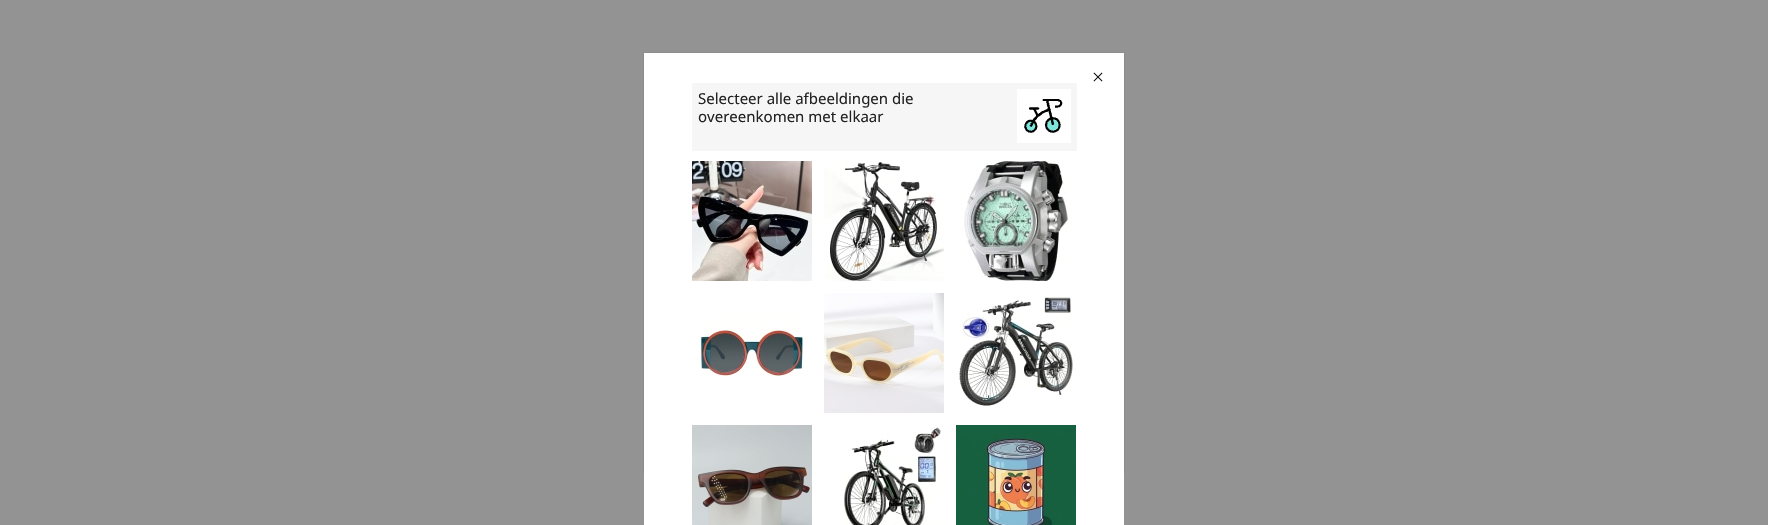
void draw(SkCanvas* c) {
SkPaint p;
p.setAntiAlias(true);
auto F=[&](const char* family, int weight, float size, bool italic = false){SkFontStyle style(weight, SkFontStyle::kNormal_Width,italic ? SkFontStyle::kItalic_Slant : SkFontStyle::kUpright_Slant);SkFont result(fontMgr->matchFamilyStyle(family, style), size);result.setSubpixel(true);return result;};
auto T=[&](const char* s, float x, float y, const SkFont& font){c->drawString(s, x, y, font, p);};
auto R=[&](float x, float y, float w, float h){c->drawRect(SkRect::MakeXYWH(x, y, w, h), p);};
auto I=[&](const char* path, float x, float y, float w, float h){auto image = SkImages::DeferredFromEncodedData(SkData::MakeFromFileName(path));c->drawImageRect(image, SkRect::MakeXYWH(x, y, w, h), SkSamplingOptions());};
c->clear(0xff939393);
p.setColor(0x4d000000);
p.setMaskFilter(SkMaskFilter::MakeBlur(kNormal_SkBlurStyle, .5));
c->drawRect(SkRect::MakeXYWH(644,53,480,420),p);
p.setMaskFilter(nullptr);
p.setColor(0xffffffff);
R(644,53,480,472);
I("1.png",1093,72,10,10);
p.setColor(0xfff6f6f6);
R(692,83,385,68);
auto f1 = F("Noto Sans",400,15);
p.setColor(0xff222222);
T("Selecteer alle afbeeldingen die",698,104,f1);
T("overeenkomen met elkaar",698,122,f1);
p.setColor(0xffffffff);
R(1017,89,54,54);
I("2.png",1024,99,39,34);
I("3.png",692,161,120,120);
I("4.png",824,161,120,120);
I("5.png",964,161,104,120);
I("6.png",700,310,104,66);
I("7.png",824,293,120,120);
I("8.png",956,296,119,110);
I("9.png",692,425,120,100);
I("10.png",841,426,102,99);
I("11.png",956,425,120,100);
}
